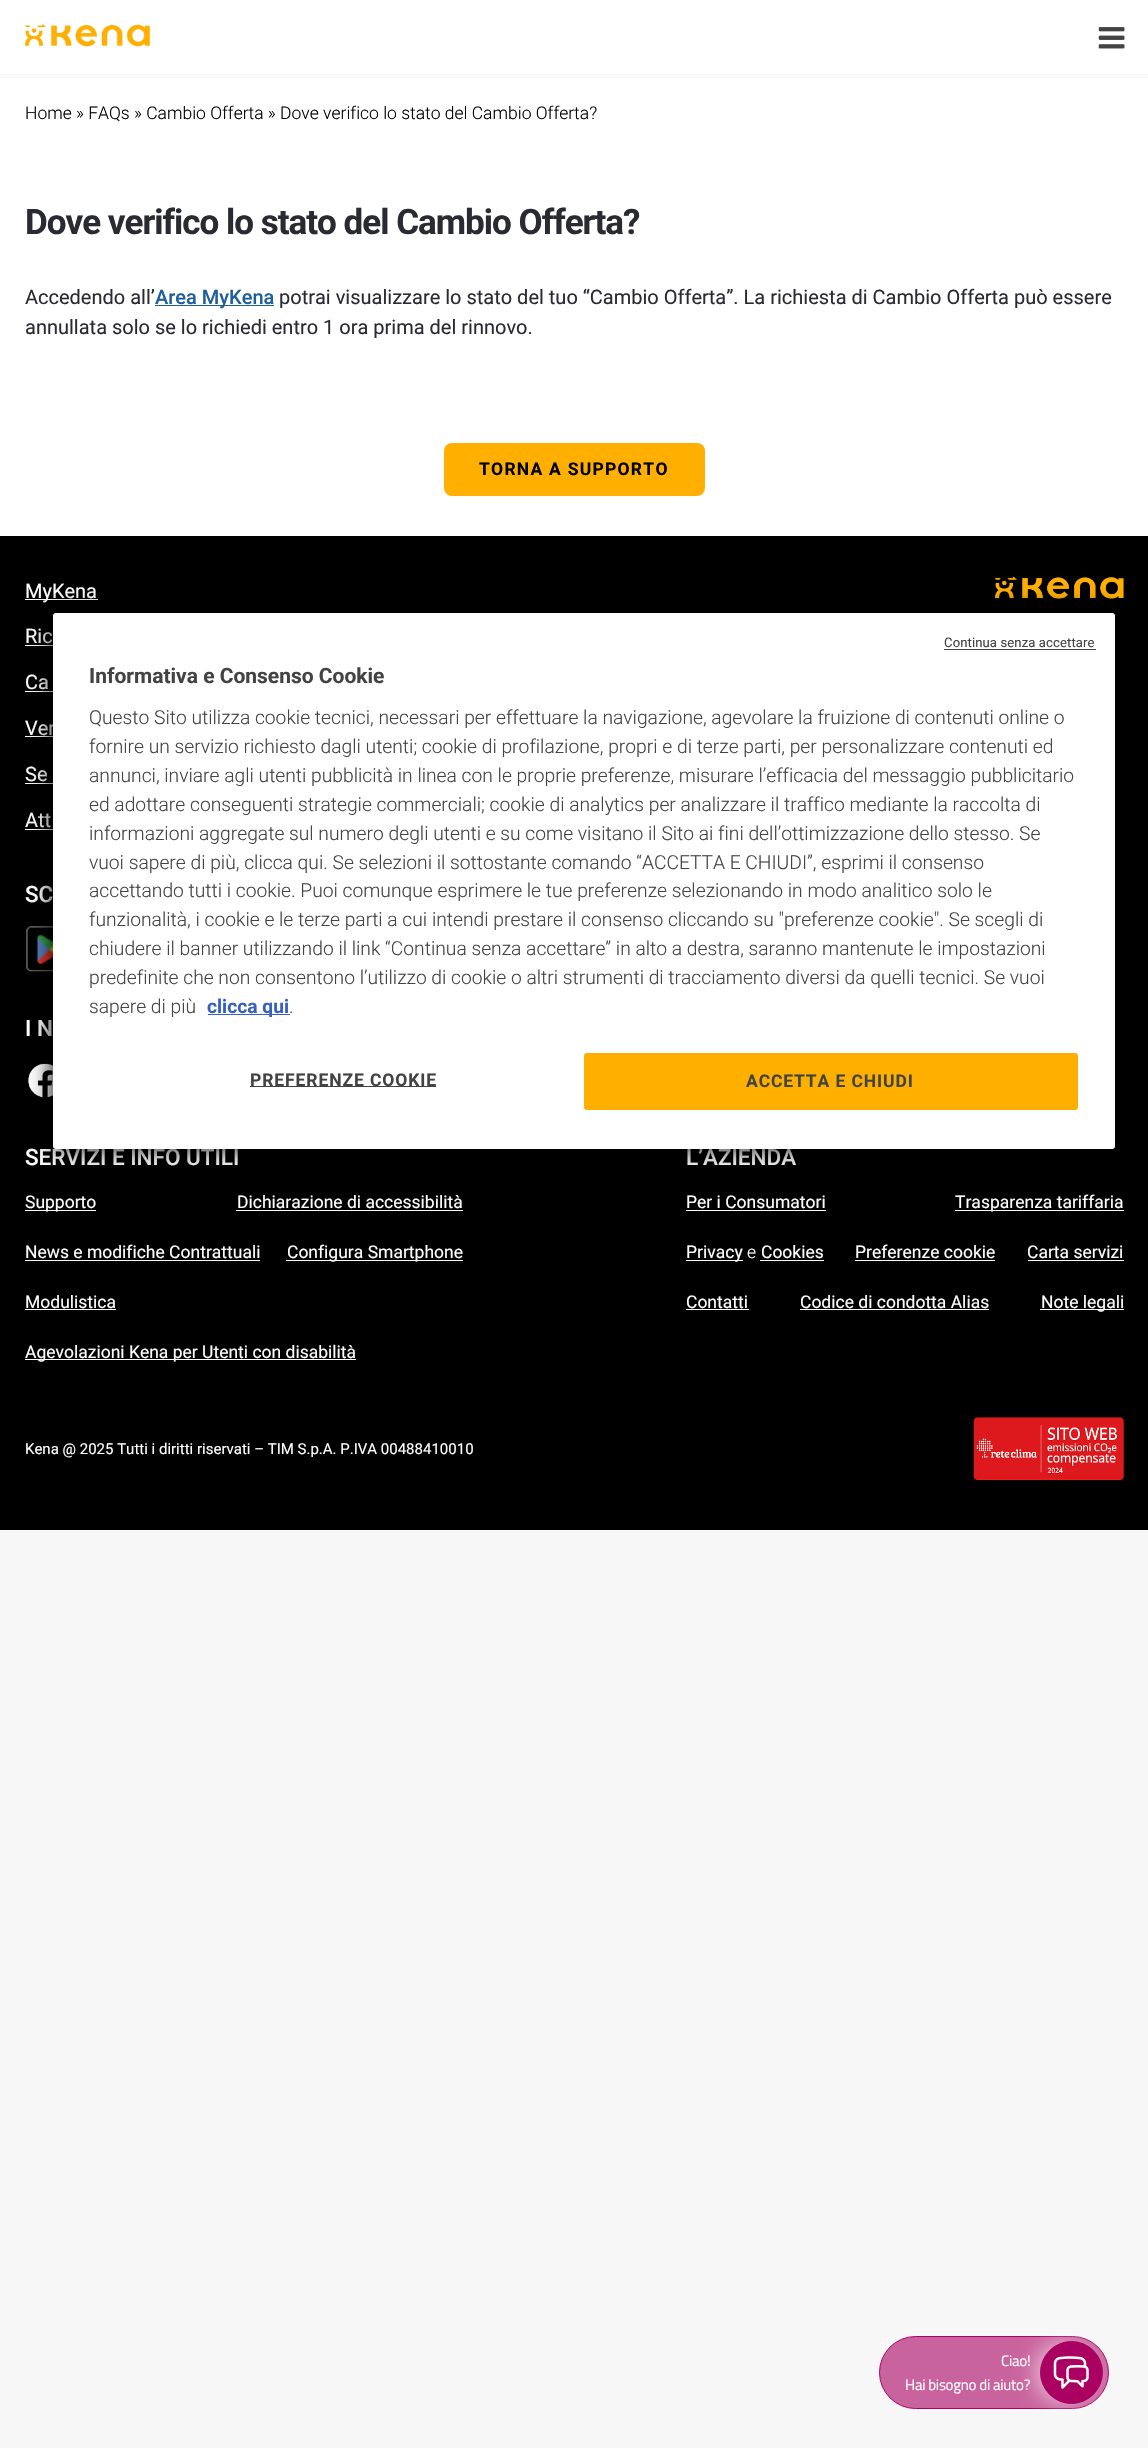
void draw(SkCanvas* c) {
SkPaint p;
p.setAntiAlias(true);
auto F=[&](const char* family, int weight, float size, bool italic = false){SkFontStyle style(weight, SkFontStyle::kNormal_Width,italic ? SkFontStyle::kItalic_Slant : SkFontStyle::kUpright_Slant);SkFont result(fontMgr->matchFamilyStyle(family, style), size);result.setSubpixel(true);return result;};
auto T=[&](const char* s, float x, float y, const SkFont& font){c->drawString(s, x, y, font, p);};
auto L=[&](const char* s, float x, float y, const SkFont& font, const SkPaint& ink, float letter, float word){std::vector<SkGlyphID> glyphs(font.countText(s, strlen(s), SkTextEncoding::kUTF8));std::vector<float> xs(glyphs.size());font.textToGlyphs(s, strlen(s), SkTextEncoding::kUTF8, glyphs);font.getXPos(glyphs, xs, x);float extra = 0;for (size_t i = 0; i < glyphs.size(); i++) {xs[i] += extra;extra += letter + word * (glyphs[i] == font.unicharToGlyph(' '));}c->drawTextBlob(SkTextBlob::MakeFromPosHGlyphs(glyphs, xs, y, font), 0, 0, ink);};
auto R=[&](float x, float y, float w, float h){c->drawRect(SkRect::MakeXYWH(x, y, w, h), p);};
auto Q=[&](float x, float y, float w, float h, float radius){c->drawRoundRect(SkRect::MakeXYWH(x, y, w, h), radius, radius, p);};
auto I=[&](const char* path, float x, float y, float w, float h){auto image = SkImages::DeferredFromEncodedData(SkData::MakeFromFileName(path));c->drawImageRect(image, SkRect::MakeXYWH(x, y, w, h), SkSamplingOptions());};
c->clear(0xfff7f7f7);
p.setColor(0xffffffff);
R(0,0,1148,74);
I("1.png",25,23,125,24);
I("2.png",1098,27,27,22);
R(0,76,1148,1);
R(0,78,1148,458);
auto f1 = F("Roboto",300,17.5);
p.setColor(0xff000000);
T("Home » FAQs » Cambio Offerta » Dove verifico lo stato del Cambio Offerta?",25,119,f1);
auto f2 = F("Roboto",700,35);
p.setColor(0xff2a2b32);
L("Dove verifico lo stato del Cambio Offerta?",25,234,f2,p,-1,0);
auto f3 = F("Roboto",400,20);
T("Accedendo all’",25,304,f3);
p.setColor(0xff1f5f9a);
R(155,305,119,1);
auto f4 = F("Roboto",500,20);
T("Area MyKena",155,304,f4);
p.setColor(0xff2a2b32);
T("potrai visualizzare lo stato del tuo “Cambio Offerta”. La richiesta di Cambio Offerta può essere",279,304,f3);
T("annullata solo se lo richiedi entro 1 ora prima del rinnovo.",25,334,f3);
p.setColor(0xffffaf00);
Q(444,443,261,53,8);
auto f5 = F("Roboto",700,17.5);
p.setColor(0xff000000);
L("TORNA A SUPPORTO",479,475,f5,p,1.25,0);
R(0,536,1148,994);
p.setColor(0xffffffff);
R(25,599,73,1);
T("MyKena",25,598,f3);
T("Ric",25,643,f3);
R(25,645,28,1);
T("Ca",25,689,f3);
R(25,691,28,1);
T("Ver",25,735,f3);
R(25,736,28,1);
T("Se",25,781,f3);
R(25,783,28,1);
T("Att",25,827,f3);
R(25,829,28,1);
I("3.png",995,576,129,23);
auto f6 = F("Roboto",500,22.5);
T("SC",25,902,f6);
I("4.png",26,926,27,46);
T("I N",25,1036,f6);
I("5.png",28,1063,25,35);
T("SERVIZI E INFO UTILI",25,1165,f6);
R(25,1210,71,1);
auto f7 = F("Roboto",400,17.5);
T("Supporto",25,1208,f7);
T("Dichiarazione di accessibilità",237,1208,f7);
R(236,1210,227,1);
T("News e modifiche Contrattuali",25,1258,f7);
R(25,1260,235,1);
R(286,1260,177,1);
T("Configura Smartphone",287,1258,f7);
T("Modulistica",25,1308,f7);
R(25,1309,91,1);
R(25,1359,331,1);
T("Agevolazioni Kena per Utenti con disabilità",25,1358,f7);
T("L’AZIENDA",686,1165,f6);
T("Per i Consumatori",686,1208,f7);
R(686,1210,140,1);
R(955,1210,169,1);
T("Trasparenza tariffaria",955,1208,f7);
R(686,1260,57,1);
T("Privacy",686,1258,f7);
T("e",747,1258,f1);
T("Cookies",761,1258,f7);
R(760,1260,64,1);
T("Preferenze cookie",855,1258,f7);
R(855,1260,140,1);
T("Carta servizi",1027,1258,f7);
R(1028,1260,96,1);
T("Contatti",686,1308,f7);
R(686,1309,63,1);
T("Codice di condotta Alias",800,1308,f7);
R(800,1309,189,1);
R(1040,1309,84,1);
T("Note legali",1041,1308,f7);
auto f8 = F("Roboto",400,15);
T("Kena @ 2025 Tutti i diritti riservati – TIM S.p.A. P.IVA 00488410010",25,1454,f8);
I("6.png",973,1417,151,63);
p.setColor(0xff000000);
p.setMaskFilter(SkMaskFilter::MakeBlur(kNormal_SkBlurStyle, 12.5));
c->drawRoundRect(SkRect::MakeXYWH(53,613,1062,536),3,3,p);
p.setMaskFilter(nullptr);
p.setColor(0xffffffff);
Q(53,613,1062,536,3);
auto f9 = F("Roboto",400,13.1);
p.setColor(0xff434343);
L("Continua senza accettare",944,647,f9,p,.1,0);
R(944,649,152,1);
auto f10 = F("Roboto",700,21);
T("Informativa e Consenso Cookie",89,683,f10);
auto f11 = F("Roboto",300,19.25);
T("Questo Sito utilizza cookie tecnici, necessari per effettuare la navigazione, agevolare la fruizione di contenuti online o",89,724,f11);
T("fornire un servizio richiesto dagli utenti; cookie di profilazione, propri e di terze parti, per personalizzare contenuti ed",89,753,f11);
T("annunci, inviare agli utenti pubblicità in linea con le proprie preferenze, misurare l’efficacia del messaggio pubblicitario",89,782,f11);
T("ed adottare conseguenti strategie commerciali; cookie di analytics per analizzare il traffico mediante la raccolta di",89,811,f11);
T("informazioni aggregate sul numero degli utenti e su come visitano il Sito ai fini dell’ottimizzazione dello stesso. Se",89,840,f11);
T("vuoi sapere di più, clicca qui. Se selezioni il sottostante comando “ACCETTA E CHIUDI”, esprimi il consenso",89,869,f11);
T("accettando tutti i cookie. Puoi comunque esprimere le tue preferenze selezionando in modo analitico solo le",89,897,f11);
T("funzionalità, i cookie e le terze parti a cui intendi prestare il consenso cliccando su \"preferenze cookie\". Se scegli di",89,926,f11);
T("chiudere il banner utilizzando il link “Continua senza accettare” in alto a destra, saranno mantenute le impostazioni",89,955,f11);
T("predefinite che non consentono l’utilizzo di cookie o altri strumenti di tracciamento diversi da quelli tecnici. Se vuoi",89,984,f11);
T("sapere di più",89,1013,f11);
p.setColor(0xff3860be);
R(208,1014,82,1);
auto f12 = F("Roboto",700,19.25);
T("clicca qui",207,1013,f12);
p.setColor(0xff434343);
T(".",289,1013,f11);
R(250,1086,186,1);
L("PREFERENZE COOKIE",250,1086,f5,p,.9,0);
p.setColor(0xffffaf00);
c->drawRoundRect(SkRect::MakeXYWH(584.5,1053.5,493,56),2,2,p);
p.setStroke(true);
p.setStrokeWidth(1);
c->drawRoundRect(SkRect::MakeXYWH(584.5,1053.5,493,56),2,2,p);
p.setStroke(false);
p.setColor(0xff434343);
L("ACCETTA E CHIUDI",746,1087,f5,p,.9,0);
p.setColor(0xffc9639d);
c->drawRoundRect(SkRect::MakeXYWH(879.5,2336.5,229,72),36,36,p);
p.setStroke(true);
p.setColor(0xffaa0061);
c->drawRoundRect(SkRect::MakeXYWH(879.5,2336.5,229,72),36,36,p);
auto f13 = F("Titillium Web",400,15);
p.setStroke(false);
p.setColor(0xffffffff);
L("Ciao!",1001,2366,f13,p,-.25,0);
L("Hai bisogno di aiuto?",905,2390,f13,p,-.25,0);
p.setColor(0x87ffffff);
p.setMaskFilter(SkMaskFilter::MakeBlur(kNormal_SkBlurStyle, 10));
c->drawRoundRect(SkRect::MakeXYWH(1034,2341,62,63),31,31,p);
p.setMaskFilter(nullptr);
p.setColor(0xffaa0061);
c->drawCircle(1071.5,2372.5,31,p);
p.setStroke(true);
c->drawCircle(1071.5,2372.5,31,p);
I("7.png",1053,2356,36,33);
}
